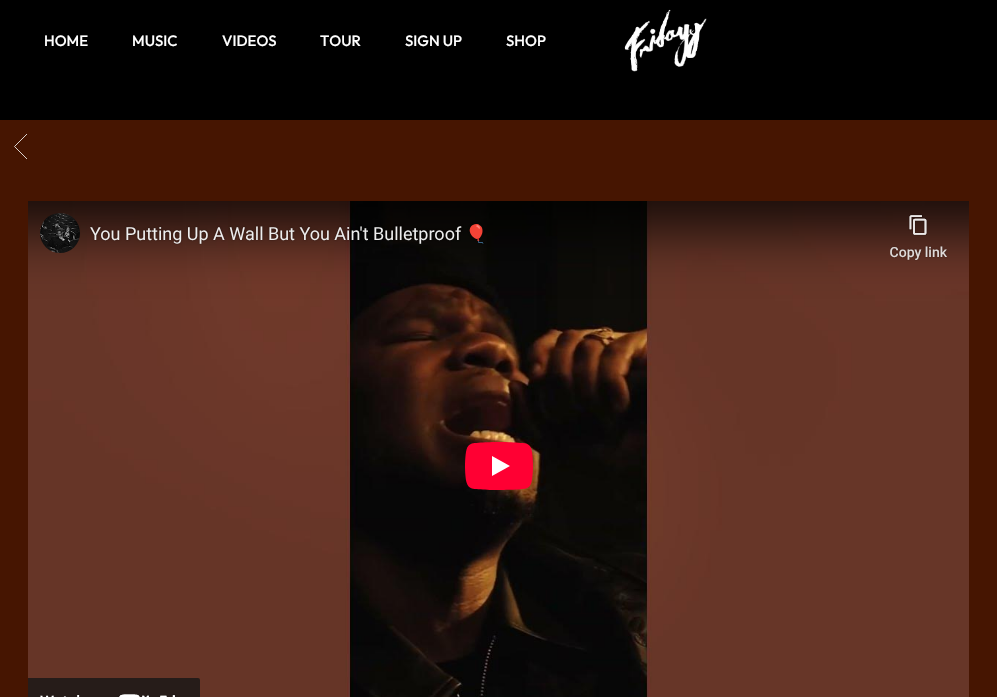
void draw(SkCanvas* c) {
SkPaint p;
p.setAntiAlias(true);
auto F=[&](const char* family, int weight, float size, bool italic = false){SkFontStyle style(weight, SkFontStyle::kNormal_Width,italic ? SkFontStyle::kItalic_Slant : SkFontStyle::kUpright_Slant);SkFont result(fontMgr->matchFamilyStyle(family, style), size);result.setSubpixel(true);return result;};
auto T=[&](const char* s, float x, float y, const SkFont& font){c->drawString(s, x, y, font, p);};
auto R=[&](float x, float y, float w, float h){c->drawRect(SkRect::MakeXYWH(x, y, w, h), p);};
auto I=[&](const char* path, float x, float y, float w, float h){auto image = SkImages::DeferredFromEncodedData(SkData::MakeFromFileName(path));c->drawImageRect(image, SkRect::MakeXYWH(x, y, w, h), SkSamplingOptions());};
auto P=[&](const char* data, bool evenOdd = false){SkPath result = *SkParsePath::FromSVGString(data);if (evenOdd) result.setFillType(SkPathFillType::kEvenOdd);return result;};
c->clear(0xff000000);
auto f1 = F("Outfit",500,15);
p.setColor(0xffffffff);
T("HOME",44,46,f1);
T("MUSIC",132,46,f1);
T("VIDEOS",222,46,f1);
T("TOUR",320,46,f1);
T("SIGN UP",405,46,f1);
T("SHOP",506,46,f1);
I("1.png",624,9,83,63);
p.setColor(0xff461501);
R(0,120,997,577);
I("2.png",28,201,941,496);
c->save();
c->clipRect(SkRect::MakeXYWH(14,134,13,25));
p.setStroke(true);
p.setStrokeWidth(.8);
p.setColor(0xffffffff);
c->drawPath(P("M27 159l-12.5-12.5l12.5-12.5"),p);
c->restore();
}
